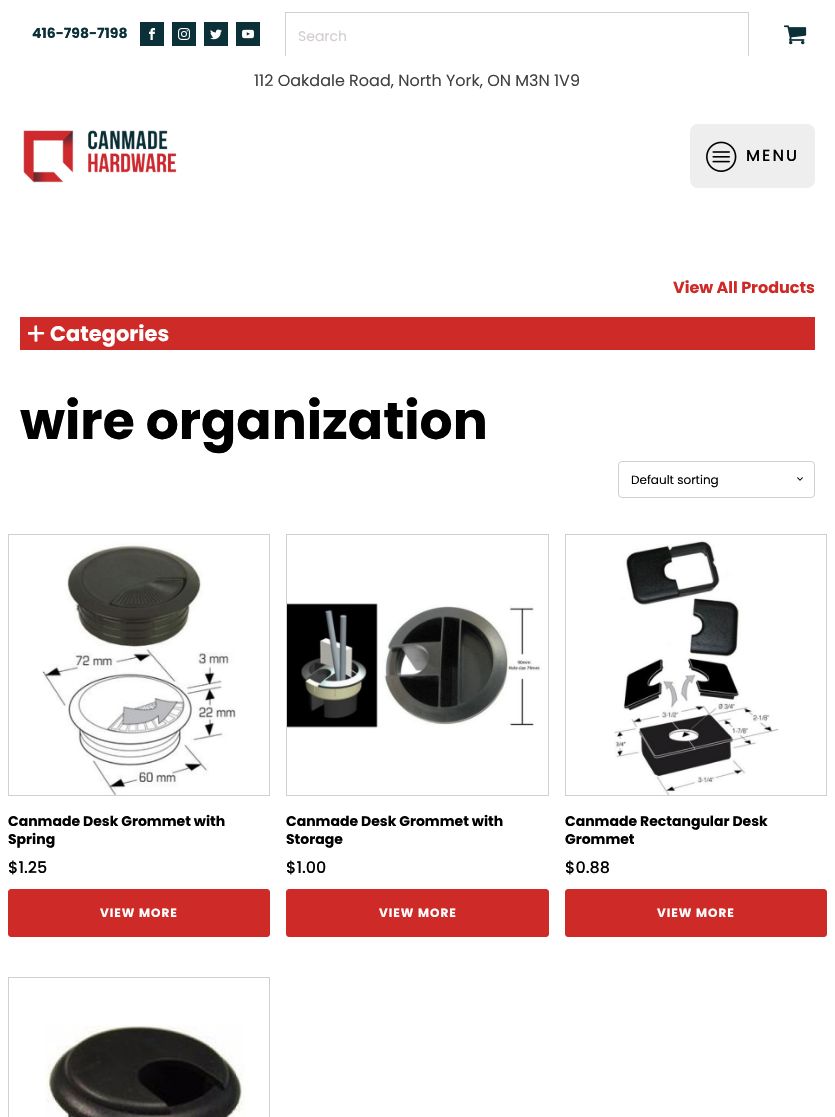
void draw(SkCanvas* c) {
SkPaint p;
p.setAntiAlias(true);
auto F=[&](const char* family, int weight, float size, bool italic = false){SkFontStyle style(weight, SkFontStyle::kNormal_Width,italic ? SkFontStyle::kItalic_Slant : SkFontStyle::kUpright_Slant);SkFont result(fontMgr->matchFamilyStyle(family, style), size);result.setSubpixel(true);return result;};
auto T=[&](const char* s, float x, float y, const SkFont& font){c->drawString(s, x, y, font, p);};
auto L=[&](const char* s, float x, float y, const SkFont& font, const SkPaint& ink, float letter, float word){std::vector<SkGlyphID> glyphs(font.countText(s, strlen(s), SkTextEncoding::kUTF8));std::vector<float> xs(glyphs.size());font.textToGlyphs(s, strlen(s), SkTextEncoding::kUTF8, glyphs);font.getXPos(glyphs, xs, x);float extra = 0;for (size_t i = 0; i < glyphs.size(); i++) {xs[i] += extra;extra += letter + word * (glyphs[i] == font.unicharToGlyph(' '));}c->drawTextBlob(SkTextBlob::MakeFromPosHGlyphs(glyphs, xs, y, font), 0, 0, ink);};
auto R=[&](float x, float y, float w, float h){c->drawRect(SkRect::MakeXYWH(x, y, w, h), p);};
auto Q=[&](float x, float y, float w, float h, float radius){c->drawRoundRect(SkRect::MakeXYWH(x, y, w, h), radius, radius, p);};
auto I=[&](const char* path, float x, float y, float w, float h){auto image = SkImages::DeferredFromEncodedData(SkData::MakeFromFileName(path));c->drawImageRect(image, SkRect::MakeXYWH(x, y, w, h), SkSamplingOptions());};
auto P=[&](const char* data, bool evenOdd = false){SkPath result = *SkParsePath::FromSVGString(data);if (evenOdd) result.setFillType(SkPathFillType::kEvenOdd);return result;};
c->clear(0xffffffff);
auto f1 = F("Poppins",700,14);
p.setColor(0xff0c3038);
T("416-798-7198",32,38,f1);
R(140,22,24,24);
I("1.png",149,28,6,12);
R(172,22,24,24);
I("2.png",178,28,12,12);
R(204,22,24,24);
I("3.png",210,29,12,11);
R(236,22,24,24);
I("4.png",242,29,12,10);
c->save();
c->clipRect(SkRect::MakeXYWH(285,12,464,44));
p.setStroke(true);
p.setStrokeWidth(1);
p.setColor(0xffd3ced2);
c->drawRect(SkRect::MakeXYWH(285.5,12.5,463,47),p);
c->restore();
auto f2 = F("Poppins",400,14);
p.setStroke(false);
T("Search",298,41,f2);
I("5.png",783,25,24,20);
auto f3 = F("Poppins",400,16);
p.setColor(0xff404040);
T("112 Oakdale Road, North York, ON M3N 1V9",254,86,f3);
I("6.png",23,130,154,53);
p.setColor(0xffeeeeee);
Q(690,124,125,64,8);
I("7.png",706,141,31,31);
auto f4 = F("Poppins",500,16);
p.setColor(0xff000000);
L("MENU",746,161,f4,p,2,0);
auto f5 = F("Poppins",700,16);
p.setColor(0xffce2a28);
T("View All Products",673,293,f5);
R(20,317,795,33);
p.setColor(0xffffffff);
c->drawPath(P("M34.5 341v-10c0-1-.5-5.5 .5-5.5h2l.5 15.5c-.5 1-3 1-3 0z"),p);
c->drawPath(P("M43.5 334.5h-10c-.5 0-5.5 1-5.5-.5v-2h15.5c1 0 1 2.5 0 2.5z"),p);
auto f6 = F("Poppins",700,21);
T("Categories",50,341,f6);
auto f7 = F("Poppins",700,52);
p.setColor(0xff000000);
T("wire organization",20,439,f7);
I("8.png",797,477,6,4);
p.setStroke(true);
p.setColor(0xffd3ced2);
c->drawRoundRect(SkRect::MakeXYWH(618.5,461.5,196,36),3.5,3.5,p);
auto f8 = F("Poppins",400,12);
p.setStroke(false);
p.setColor(0xff000000);
T("Default sorting",631,484,f8);
p.setStroke(true);
p.setColor(0xffd3ced2);
c->drawRect(SkRect::MakeXYWH(8.5,534.5,261,261),p);
I("9.png",42,542,194,253);
p.setStroke(false);
p.setColor(0xff000000);
T("Canmade Desk Grommet with",8,826,f1);
T("Spring",8,844,f1);
T("$1.25",8,873,f4);
p.setColor(0xffce2a28);
c->drawRoundRect(SkRect::MakeXYWH(8.5,889.5,261,47),2.5,2.5,p);
p.setStroke(true);
c->drawRoundRect(SkRect::MakeXYWH(8.5,889.5,261,47),2.5,2.5,p);
auto f9 = F("Poppins",700,12);
p.setStroke(false);
p.setColor(0xffffffff);
L("VIEW MORE",100,917,f9,p,1,0);
p.setStroke(true);
p.setColor(0xffd3ced2);
c->drawRect(SkRect::MakeXYWH(286.5,534.5,262,261),p);
I("10.png",287,603,255,126);
p.setStroke(false);
p.setColor(0xff000000);
T("Canmade Desk Grommet with",286,826,f1);
T("Storage",286,844,f1);
T("$1.00",286,873,f4);
p.setColor(0xffce2a28);
c->drawRoundRect(SkRect::MakeXYWH(286.5,889.5,262,47),2.5,2.5,p);
p.setStroke(true);
c->drawRoundRect(SkRect::MakeXYWH(286.5,889.5,262,47),2.5,2.5,p);
p.setStroke(false);
p.setColor(0xffffffff);
L("VIEW MORE",379,917,f9,p,1,0);
p.setStroke(true);
p.setColor(0xffd3ced2);
c->drawRect(SkRect::MakeXYWH(565.5,534.5,261,261),p);
I("11.png",614,540,165,255);
p.setStroke(false);
p.setColor(0xff000000);
T("Canmade Rectangular Desk",565,826,f1);
T("Grommet",565,844,f1);
T("$0.88",565,873,f4);
p.setColor(0xffce2a28);
c->drawRoundRect(SkRect::MakeXYWH(565.5,889.5,261,47),2.5,2.5,p);
p.setStroke(true);
c->drawRoundRect(SkRect::MakeXYWH(565.5,889.5,261,47),2.5,2.5,p);
p.setStroke(false);
p.setColor(0xffffffff);
L("VIEW MORE",657,917,f9,p,1,0);
p.setStroke(true);
p.setColor(0xffd3ced2);
c->drawRect(SkRect::MakeXYWH(8.5,977.5,261,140),p);
I("12.png",45,1025,200,92);
}
